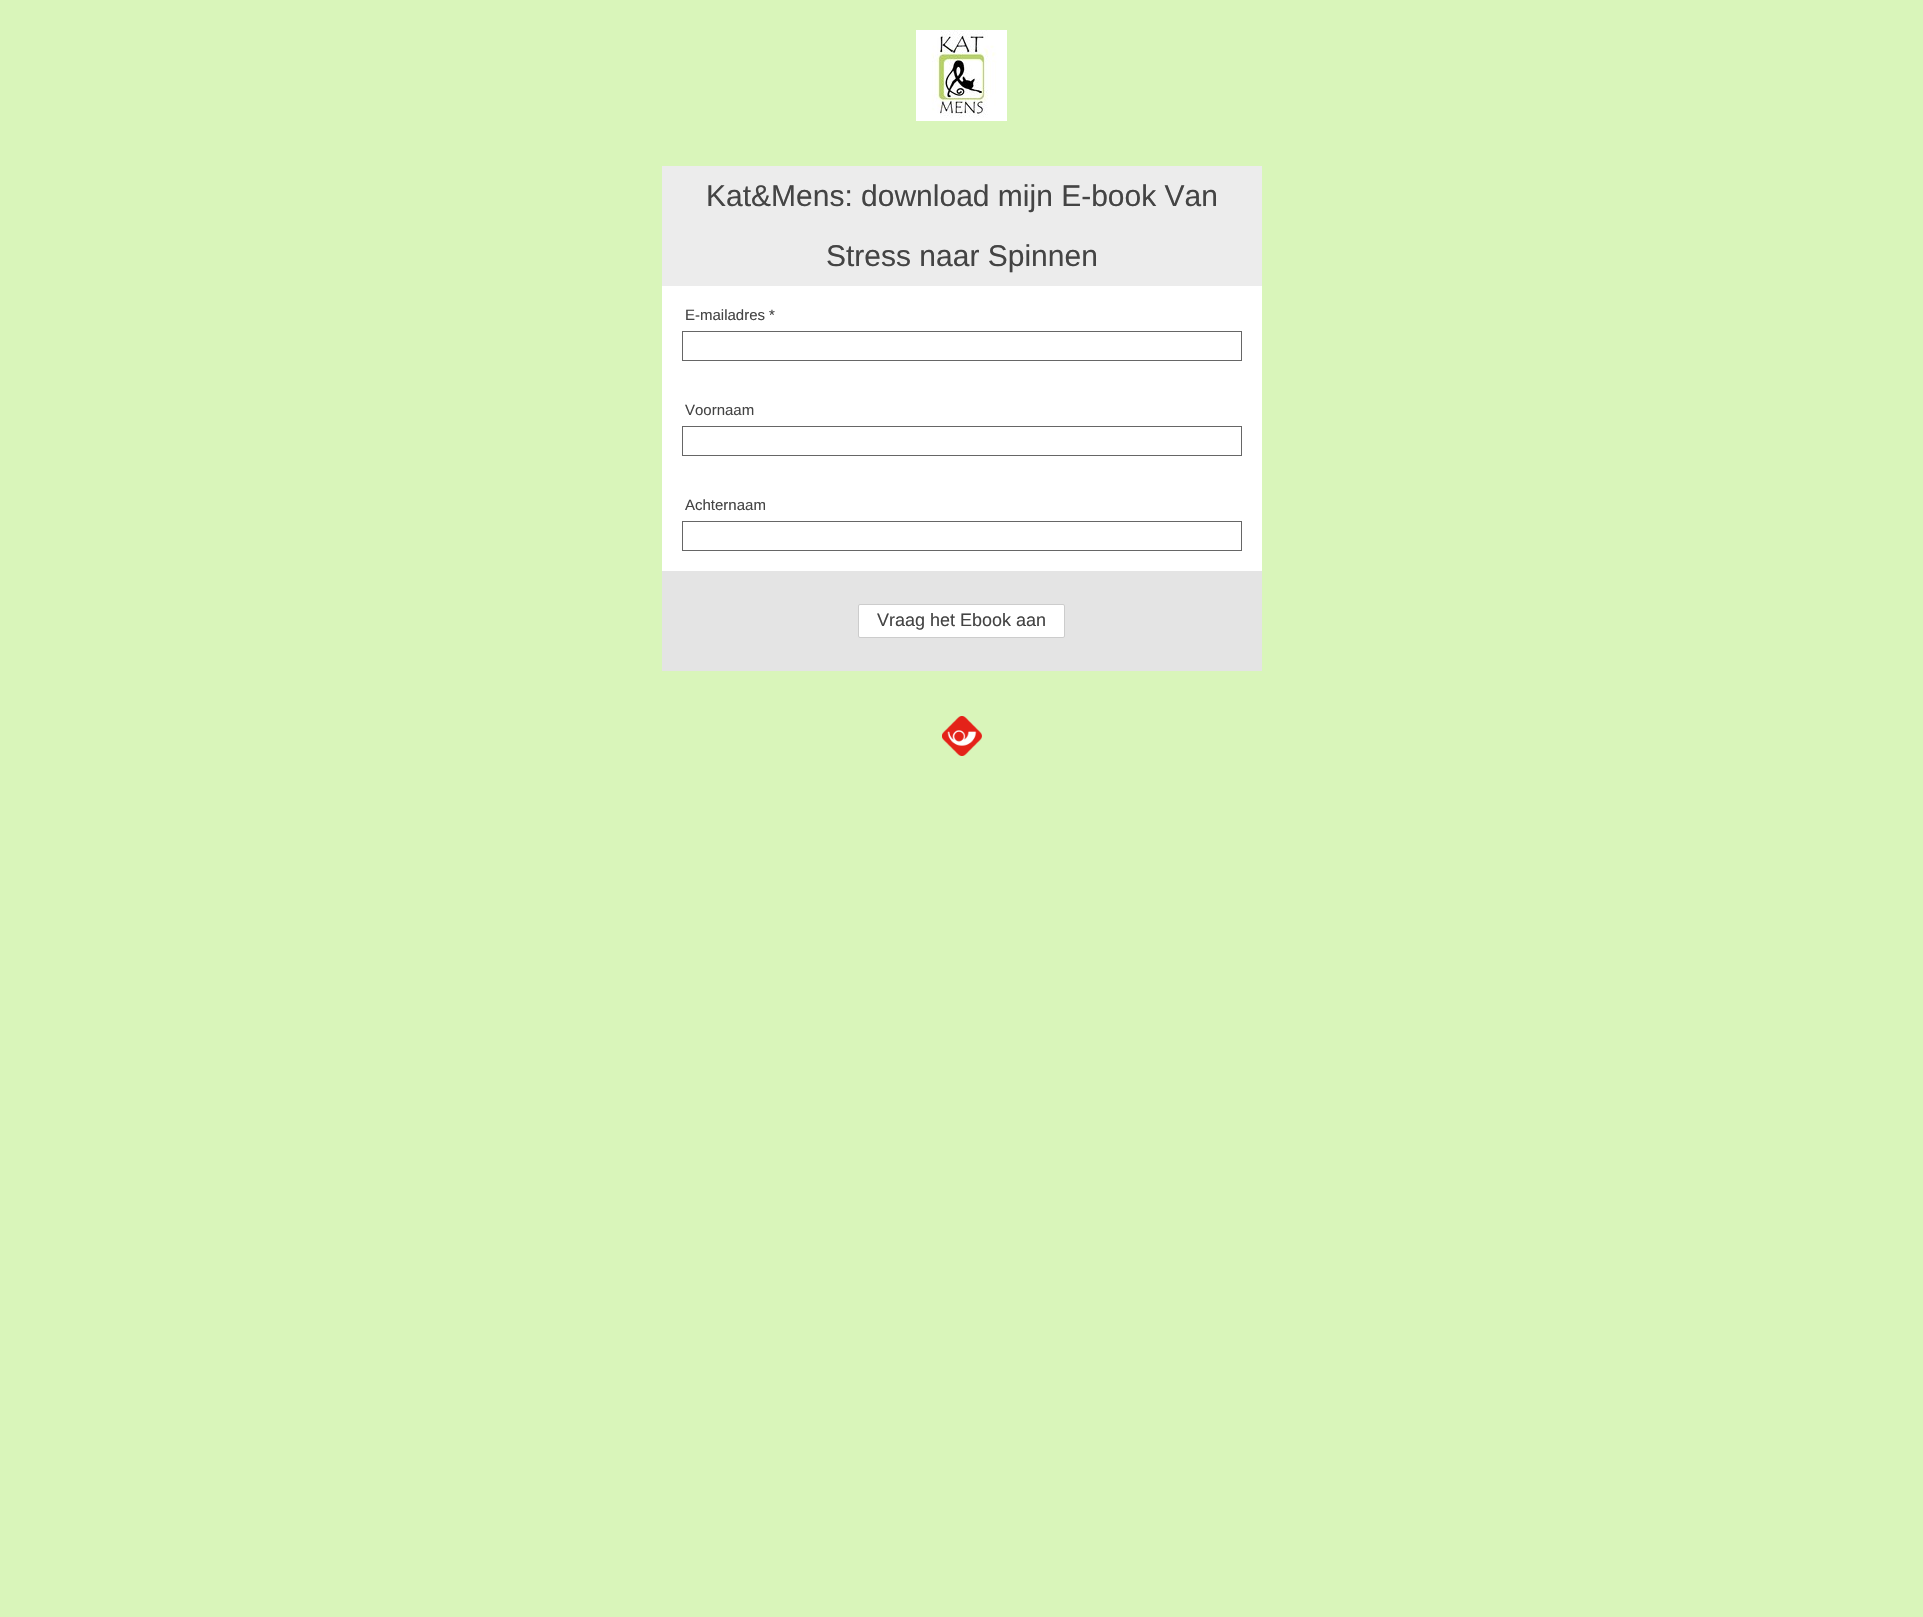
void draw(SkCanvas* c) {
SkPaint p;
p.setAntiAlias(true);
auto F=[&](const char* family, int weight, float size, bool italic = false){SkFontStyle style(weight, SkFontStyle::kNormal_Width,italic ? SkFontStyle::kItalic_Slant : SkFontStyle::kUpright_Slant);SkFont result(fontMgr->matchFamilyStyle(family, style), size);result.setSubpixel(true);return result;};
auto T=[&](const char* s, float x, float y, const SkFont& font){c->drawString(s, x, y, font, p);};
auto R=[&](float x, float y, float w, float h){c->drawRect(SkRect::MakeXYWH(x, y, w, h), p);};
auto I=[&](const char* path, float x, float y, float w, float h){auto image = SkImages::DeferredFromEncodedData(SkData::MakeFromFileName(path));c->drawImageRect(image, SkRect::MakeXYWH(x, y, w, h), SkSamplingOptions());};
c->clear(0xffd9f5ba);
I("1.png",916,30,91,91);
p.setColor(0xffececec);
R(662,166,600,120);
auto f1 = F("Liberation Sans",400,30);
p.setColor(0xff444444);
T("Kat&Mens: download mijn E-book Van",706,206,f1);
T("Stress naar Spinnen",826,266,f1);
p.setColor(0xffffffff);
R(662,286,600,285);
auto f2 = F("Liberation Sans",400,15);
p.setColor(0xff444444);
T("E-mailadres",685,320,f2);
T("*",769,320,f2);
p.setStroke(true);
p.setStrokeWidth(1);
p.setColor(0xff666666);
c->drawRect(SkRect::MakeXYWH(682.5,331.5,559,29),p);
p.setStroke(false);
p.setColor(0xff444444);
T("Voornaam",685,415,f2);
p.setStroke(true);
p.setColor(0xff666666);
c->drawRect(SkRect::MakeXYWH(682.5,426.5,559,29),p);
p.setStroke(false);
p.setColor(0xff444444);
T("Achternaam",685,510,f2);
p.setStroke(true);
p.setColor(0xff666666);
c->drawRect(SkRect::MakeXYWH(682.5,521.5,559,29),p);
p.setStroke(false);
p.setColor(0xffe4e4e4);
R(662,571,600,100);
p.setColor(0xffffffff);
c->drawRoundRect(SkRect::MakeXYWH(858.5,604.5,206,33),1.5,1.5,p);
p.setStroke(true);
p.setColor(0xffcccccc);
c->drawRoundRect(SkRect::MakeXYWH(858.5,604.5,206,33),1.5,1.5,p);
auto f3 = F("Liberation Sans",400,18);
p.setStroke(false);
p.setColor(0xff444444);
T("Vraag het Ebook aan",877,626,f3);
I("2.png",942,716,40,40);
}
